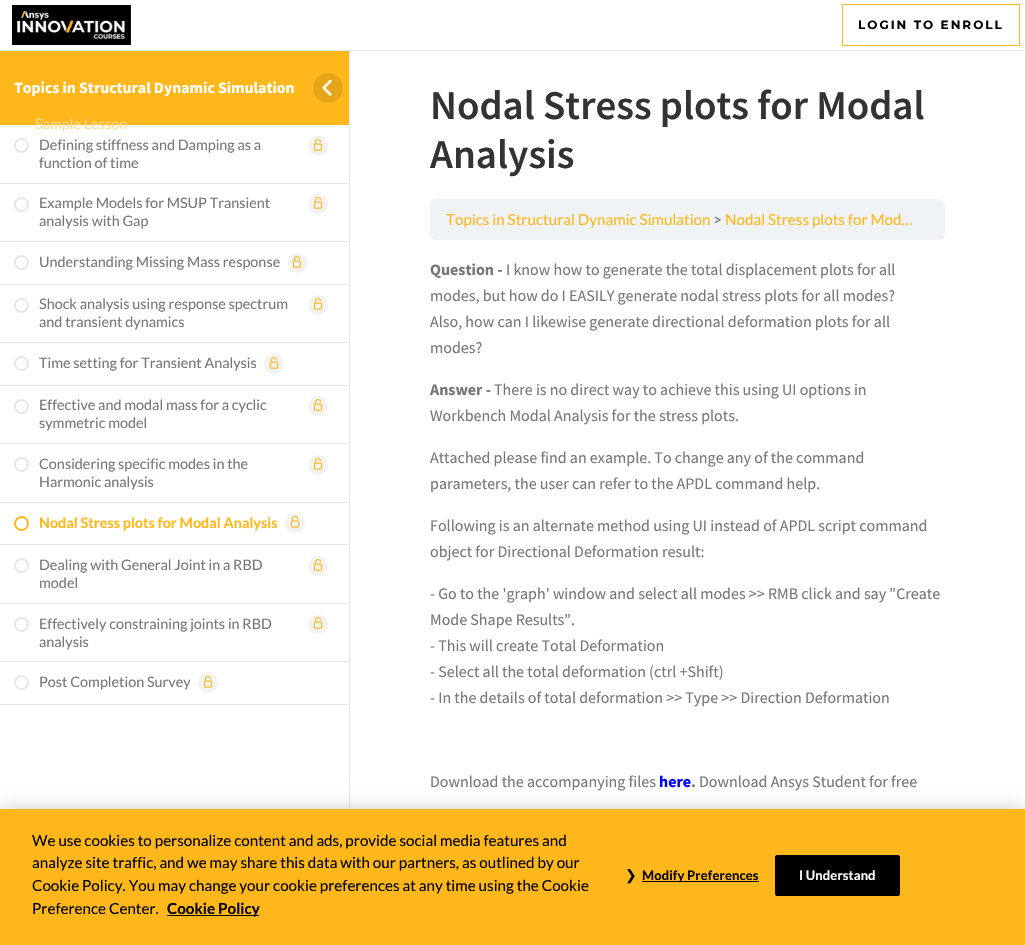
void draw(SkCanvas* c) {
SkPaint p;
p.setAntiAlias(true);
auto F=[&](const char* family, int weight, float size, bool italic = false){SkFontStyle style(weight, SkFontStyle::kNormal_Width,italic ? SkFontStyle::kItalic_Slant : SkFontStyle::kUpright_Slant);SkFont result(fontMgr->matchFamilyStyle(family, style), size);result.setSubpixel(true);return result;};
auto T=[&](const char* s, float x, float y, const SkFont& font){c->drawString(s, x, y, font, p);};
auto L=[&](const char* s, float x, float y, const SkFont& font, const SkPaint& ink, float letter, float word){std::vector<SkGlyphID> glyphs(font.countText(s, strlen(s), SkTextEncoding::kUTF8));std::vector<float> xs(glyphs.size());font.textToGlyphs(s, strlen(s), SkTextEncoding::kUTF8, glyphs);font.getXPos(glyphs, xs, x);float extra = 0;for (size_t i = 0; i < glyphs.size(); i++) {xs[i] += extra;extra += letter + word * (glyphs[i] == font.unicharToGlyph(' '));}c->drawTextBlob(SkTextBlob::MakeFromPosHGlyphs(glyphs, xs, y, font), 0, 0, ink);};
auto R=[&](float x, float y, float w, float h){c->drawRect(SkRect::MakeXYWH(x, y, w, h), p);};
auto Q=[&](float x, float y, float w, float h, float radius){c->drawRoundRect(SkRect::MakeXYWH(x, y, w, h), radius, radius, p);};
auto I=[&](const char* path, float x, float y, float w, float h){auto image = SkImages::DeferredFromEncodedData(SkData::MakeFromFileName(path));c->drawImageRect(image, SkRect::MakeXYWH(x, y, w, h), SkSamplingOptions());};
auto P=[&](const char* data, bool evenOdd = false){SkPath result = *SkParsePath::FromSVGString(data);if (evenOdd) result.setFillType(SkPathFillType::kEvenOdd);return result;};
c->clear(0xffffffff);
p.setColor(0xffe6e6e6);
R(349,51,1,758);
p.setColor(0xffffb71b);
R(0,51,349,74);
auto f1 = F("Source Sans Pro",700,15.8);
p.setColor(0xffffffff);
T("Topics in Structural Dynamic Simulation",14,93,f1);
p.setColor(0xffe6a518);
c->drawCircle(328,88,15,p);
I("1.png",322,79,10,17);
p.setColor(0xffe6e6e6);
R(0,183,349,1);
p.setStroke(true);
p.setStrokeWidth(2);
p.setColor(0xffe2e7ed);
c->drawCircle(21.5,145.5,6.5,p);
auto f2 = F("Lato",400,14.4);
p.setStroke(false);
p.setColor(0xff777777);
T("Defining stiffness and Damping as a",39,150,f2);
p.setColor(0xfff2f2f2);
c->drawCircle(318,146,10,p);
I("2.png",313,139,10,12);
p.setColor(0xff777777);
T("function of time",39,168,f2);
p.setColor(0xffe6e6e6);
R(0,241,349,1);
p.setStroke(true);
p.setColor(0xffe2e7ed);
c->drawCircle(21.5,204.5,6.5,p);
p.setStroke(false);
p.setColor(0xff777777);
T("Example Models for MSUP Transient",39,208,f2);
p.setColor(0xfff2f2f2);
c->drawCircle(318,204,10,p);
I("2.png",313,197,10,12);
p.setColor(0xff777777);
T("analysis with Gap",39,226,f2);
p.setColor(0xffe6e6e6);
R(0,284,349,1);
p.setStroke(true);
p.setColor(0xffe2e7ed);
c->drawCircle(21.5,262.5,6.5,p);
p.setStroke(false);
p.setColor(0xff777777);
T("Understanding Missing Mass response",39,267,f2);
p.setColor(0xfff2f2f2);
Q(288,253,19,20,9.5);
I("2.png",292,256,10,12);
p.setColor(0xffe6e6e6);
R(0,342,349,1);
p.setStroke(true);
p.setColor(0xffe2e7ed);
c->drawCircle(21.5,305.5,6.5,p);
p.setStroke(false);
p.setColor(0xff777777);
T("Shock analysis using response spectrum",39,309,f2);
p.setColor(0xfff2f2f2);
c->drawCircle(318,305,10,p);
I("2.png",313,298,10,12);
p.setColor(0xff777777);
T("and transient dynamics",39,327,f2);
p.setColor(0xffe6e6e6);
R(0,385,349,1);
p.setStroke(true);
p.setColor(0xffe2e7ed);
c->drawCircle(21.5,363.5,6.5,p);
p.setStroke(false);
p.setColor(0xff777777);
T("Time setting for Transient Analysis",39,368,f2);
p.setColor(0xfff2f2f2);
c->drawCircle(274,364,10,p);
I("2.png",269,357,10,12);
p.setColor(0xffe6e6e6);
R(0,443,349,1);
p.setStroke(true);
p.setColor(0xffe2e7ed);
c->drawCircle(21.5,406.5,6.5,p);
p.setStroke(false);
p.setColor(0xff777777);
T("Effective and modal mass for a cyclic",39,410,f2);
p.setColor(0xfff2f2f2);
c->drawCircle(318,406,10,p);
I("2.png",313,399,10,12);
p.setColor(0xff777777);
T("symmetric model",39,428,f2);
p.setColor(0xffe6e6e6);
R(0,502,349,1);
p.setStroke(true);
p.setColor(0xffe2e7ed);
c->drawCircle(21.5,464.5,6.5,p);
p.setStroke(false);
p.setColor(0xff777777);
T("Considering specific modes in the",39,469,f2);
p.setColor(0xfff2f2f2);
c->drawCircle(318,465,10,p);
I("2.png",313,458,10,12);
p.setColor(0xff777777);
T("Harmonic analysis",39,487,f2);
p.setColor(0xffe6e6e6);
R(0,544,349,1);
p.setStroke(true);
p.setColor(0xffffb71b);
c->drawCircle(21.5,523.5,6.5,p);
auto f3 = F("Lato",700,14.4);
p.setStroke(false);
T("Nodal Stress plots for Modal Analysis",39,528,f3);
p.setColor(0xfff2f2f2);
Q(285,514,20,19,9.5);
I("2.png",290,516,10,12);
p.setColor(0xffe6e6e6);
R(0,603,349,1);
p.setStroke(true);
p.setColor(0xffe2e7ed);
c->drawCircle(21.5,565.5,6.5,p);
p.setStroke(false);
p.setColor(0xff777777);
T("Dealing with General Joint in a RBD",39,570,f2);
p.setColor(0xfff2f2f2);
c->drawCircle(318,566,10,p);
I("2.png",313,559,10,12);
p.setColor(0xff777777);
T("model",39,588,f2);
p.setColor(0xffe6e6e6);
R(0,661,349,1);
p.setStroke(true);
p.setColor(0xffe2e7ed);
c->drawCircle(21.5,624.5,6.5,p);
p.setStroke(false);
p.setColor(0xff777777);
T("Effectively constraining joints in RBD",39,629,f2);
p.setColor(0xfff2f2f2);
Q(308,615,20,19,9.5);
I("2.png",313,617,10,12);
p.setColor(0xff777777);
T("analysis",39,647,f2);
p.setColor(0xffe6e6e6);
R(0,704,349,1);
p.setStroke(true);
p.setColor(0xffe2e7ed);
c->drawCircle(21.5,682.5,6.5,p);
p.setStroke(false);
p.setColor(0xff777777);
T("Post Completion Survey",39,687,f2);
p.setColor(0xfff2f2f2);
c->drawCircle(208,683,10,p);
I("2.png",203,676,10,12);
p.setColor(0xffe2e7ed);
R(0,50,1025,1);
I("3.png",12,5,119,40);
p.setStroke(true);
p.setStrokeWidth(1);
p.setColor(0xffffb71b);
c->drawRect(SkRect::MakeXYWH(842.5,4.5,177,41),p);
auto f4 = F("Montserrat",700,12);
p.setStroke(false);
p.setColor(0xff000000);
L("LOGIN TO ENROLL",858,29,f4,p,2,0);
auto f5 = F("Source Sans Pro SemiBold",600,41);
p.setColor(0xff333333);
T("Nodal Stress plots for Modal",430,119,f5);
T("Analysis",430,168,f5);
p.setColor(0xfff0f3f6);
Q(430,199,515,41,6);
auto f6 = F("Lato",400,15.2);
p.setColor(0xffffb71b);
T("Topics in Structural Dynamic Simulation",446,225,f6);
p.setColor(0xff777777);
T(">",713,225,f6);
p.setColor(0xffffb71b);
T("Nodal Stress plots for Mod…",725,225,f6);
auto f7 = F("Source Sans Pro",700,16);
p.setColor(0xff777777);
T("Question -",430,275,f7);
auto f8 = F("Source Sans Pro",400,16);
T("I know how to generate the total displacement plots for all",506,275,f8);
T("modes, but how do I EASILY generate nodal stress plots for all modes?",430,301,f8);
T("Also, how can I likewise generate directional deformation plots for all",430,327,f8);
T("modes?",430,353,f8);
T("Answer -",430,395,f7);
T("There is no direct way to achieve this using UI options in",494,395,f8);
T("Workbench Modal Analysis for the stress plots.",430,421,f8);
T("Attached please find an example. To change any of the command",430,463,f8);
T("parameters, the user can refer to the APDL command help.",430,489,f8);
T("Following is an alternate method using UI instead of APDL script command",430,531,f8);
T("object for Directional Deformation result:",430,557,f8);
T("- Go to the 'graph' window and select all modes >> RMB click and say \"Create",430,599,f8);
T("Mode Shape Results\".",430,625,f8);
T("- This will create Total Deformation",430,651,f8);
T("- Select all the total deformation (ctrl +Shift)",430,677,f8);
T("- In the details of total deformation >> Type >> Direction Deformation",430,703,f8);
T("Download the accompanying files",430,787,f8);
p.setColor(0xff0000ff);
T("here",659,787,f7);
p.setColor(0xff777777);
T(".",691,787,f7);
T("Download Ansys Student for free",699,787,f8);
p.setColor(0xffffdb8d);
T("Sample Lesson",35,129,f2);
p.setColor(0xffffffff);
c->drawPath(P("M14 137l-3.5 3.5l3.5 3.5l.5-.5l-3.5-3.5z"),p);
c->drawPath(P("M11 677.5l-.5 .5l3.5 3.5l.5-.5z"),p);
p.setColor(0x33000000);
p.setMaskFilter(SkMaskFilter::MakeBlur(kNormal_SkBlurStyle, 9));
c->drawRect(SkRect::MakeXYWH(0,809,1025,136),p);
p.setMaskFilter(nullptr);
p.setColor(0xffffb71b);
R(0,809,1025,136);
p.setColor(0xff000000);
T("We use cookies to personalize content and ads, provide social media features and",32,846,f6);
T("analyze site traffic, and we may share this data with our partners, as outlined by our",32,868,f6);
T("Cookie Policy. You may change your cookie preferences at any time using the Cookie",32,891,f6);
T("Preference Center.",32,914,f6);
R(167,915,92,1);
auto f9 = F("Lato",700,15.2);
T("Cookie Policy",167,914,f9);
auto f10 = F("DejaVu Sans",400,14);
L("❯",625,880,f10,p,.1,0);
R(642,881,117,1);
auto f11 = F("Lato",700,13);
L("Modify Preferences",642,880,f11,p,.1,0);
c->drawRoundRect(SkRect::MakeXYWH(775.5,855.5,124,40),1.5,1.5,p);
p.setStroke(true);
c->drawRoundRect(SkRect::MakeXYWH(775.5,855.5,124,40),1.5,1.5,p);
p.setStroke(false);
p.setColor(0xffffffff);
L("I Understand",799,880,f11,p,.1,0);
}
